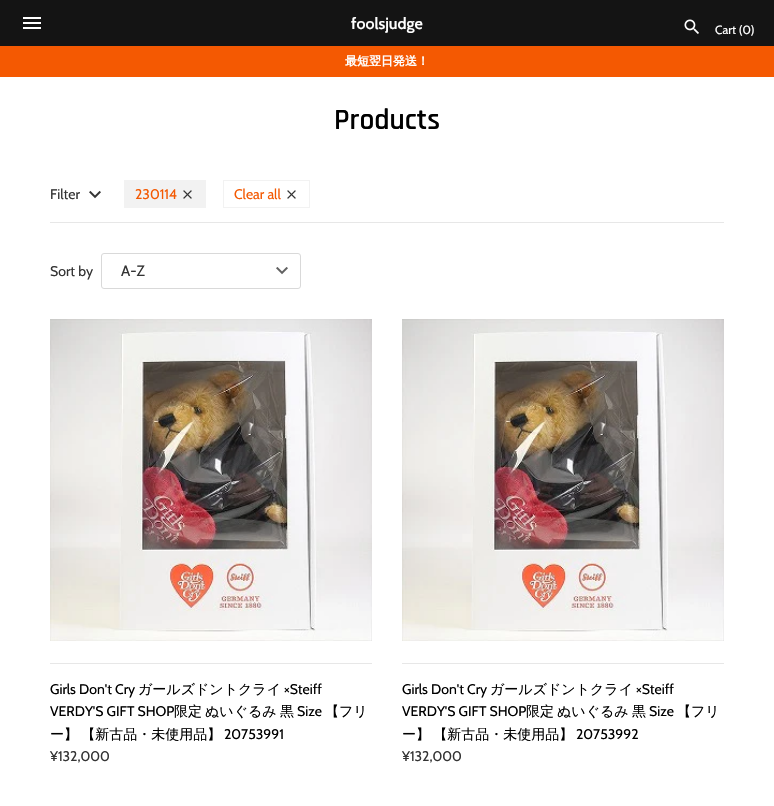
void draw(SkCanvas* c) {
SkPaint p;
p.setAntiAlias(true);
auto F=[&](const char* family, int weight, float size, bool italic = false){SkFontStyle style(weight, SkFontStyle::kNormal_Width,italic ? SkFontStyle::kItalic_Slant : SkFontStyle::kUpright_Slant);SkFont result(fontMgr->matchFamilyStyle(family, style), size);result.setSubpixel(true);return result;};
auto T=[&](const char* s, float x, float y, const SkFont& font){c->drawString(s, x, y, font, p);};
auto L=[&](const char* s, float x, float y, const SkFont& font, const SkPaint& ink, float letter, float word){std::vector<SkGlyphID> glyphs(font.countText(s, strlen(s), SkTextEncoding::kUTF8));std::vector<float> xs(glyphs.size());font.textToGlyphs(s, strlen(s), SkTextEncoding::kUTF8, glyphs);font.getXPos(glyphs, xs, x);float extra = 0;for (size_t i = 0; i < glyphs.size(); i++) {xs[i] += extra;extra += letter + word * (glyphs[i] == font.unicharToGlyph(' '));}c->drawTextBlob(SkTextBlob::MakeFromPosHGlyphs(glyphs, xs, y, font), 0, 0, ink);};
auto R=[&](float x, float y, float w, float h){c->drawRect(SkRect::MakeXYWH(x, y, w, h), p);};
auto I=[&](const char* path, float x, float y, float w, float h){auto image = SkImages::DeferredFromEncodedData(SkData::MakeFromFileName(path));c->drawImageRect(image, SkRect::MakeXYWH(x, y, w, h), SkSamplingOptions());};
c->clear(0xffffffff);
p.setColor(0xff141414);
R(0,0,774,46);
I("1.png",23,17,18,12);
auto f1 = F("Cabin",600,16);
p.setColor(0xffffffff);
T("foolsjudge",351,29,f1);
I("2.png",684,19,15,15);
auto f2 = F("Cabin",400,12);
T("Cart (0)",715,34,f2);
p.setColor(0xfff45902);
R(0,46,774,31);
auto f3 = F("WenQuanYi Zen Hei",700,12);
p.setColor(0xffffffff);
T("最短翌日発送！",345,65,f3);
auto f4 = F("Rajdhani",600,29.5);
p.setColor(0xff000000);
T("Products",334,129,f4);
p.setColor(0xffe7e7e7);
R(50,222,674,1);
auto f5 = F("Cabin",400,14);
p.setColor(0xff343434);
T("Filter",50,199,f5);
I("3.png",89,190,12,9);
p.setColor(0xfff2f2f2);
R(124,180,82,28);
p.setColor(0xfff45902);
T("230114",135,199,f5);
I("4.png",183,190,9,9);
p.setStroke(true);
p.setStrokeWidth(1);
p.setColor(0xfff2f2f2);
c->drawRect(SkRect::MakeXYWH(223.5,180.5,86,27),p);
p.setStroke(false);
p.setColor(0xfff45902);
T("Clear all",234,199,f5);
I("5.png",287,190,9,9);
p.setColor(0xff343434);
T("Sort by",50,276,f5);
I("6.png",276,267,12,8);
p.setStroke(true);
p.setColor(0xffd9d9d9);
c->drawRoundRect(SkRect::MakeXYWH(101.5,253.5,199,35),2.5,2.5,p);
auto f6 = F("Cabin",400,15);
p.setStroke(false);
p.setColor(0xff343434);
T("A-Z",121,276,f6);
I("7.png",50,319,322,322);
p.setColor(0xffe7e7e7);
R(50,663,322,1);
p.setColor(0xff000000);
T("Girls Don't Cry",50,694,f5);
auto f7 = F("WenQuanYi Zen Hei",500,14);
T("ガールズドントクライ",138,694,f7);
T("×Steiff",284,694,f5);
T("VERDY'S GIFT SHOP",50,716,f5);
T("限定",174,716,f7);
T("ぬいぐるみ",205,716,f7);
T("黒",280,716,f7);
T("Size",297,716,f5);
T("【フリ",325,716,f7);
L("ー】 【新古品・未使用品】",50,739,f7,p,0,-1);
T("20753991",224,739,f5);
p.setColor(0xff343434);
T("¥132,000",50,761,f5);
I("7.png",402,319,322,322);
p.setColor(0xffe7e7e7);
R(402,663,322,1);
p.setColor(0xff000000);
T("Girls Don't Cry",402,694,f5);
T("ガールズドントクライ",490,694,f7);
T("×Steiff",636,694,f5);
T("VERDY'S GIFT SHOP",402,716,f5);
T("限定",526,716,f7);
T("ぬいぐるみ",557,716,f7);
T("黒",632,716,f7);
T("Size",649,716,f5);
T("【フリ",677,716,f7);
L("ー】 【新古品・未使用品】",402,739,f7,p,0,-1);
T("20753992",576,739,f5);
p.setColor(0xff343434);
T("¥132,000",402,761,f5);
}
